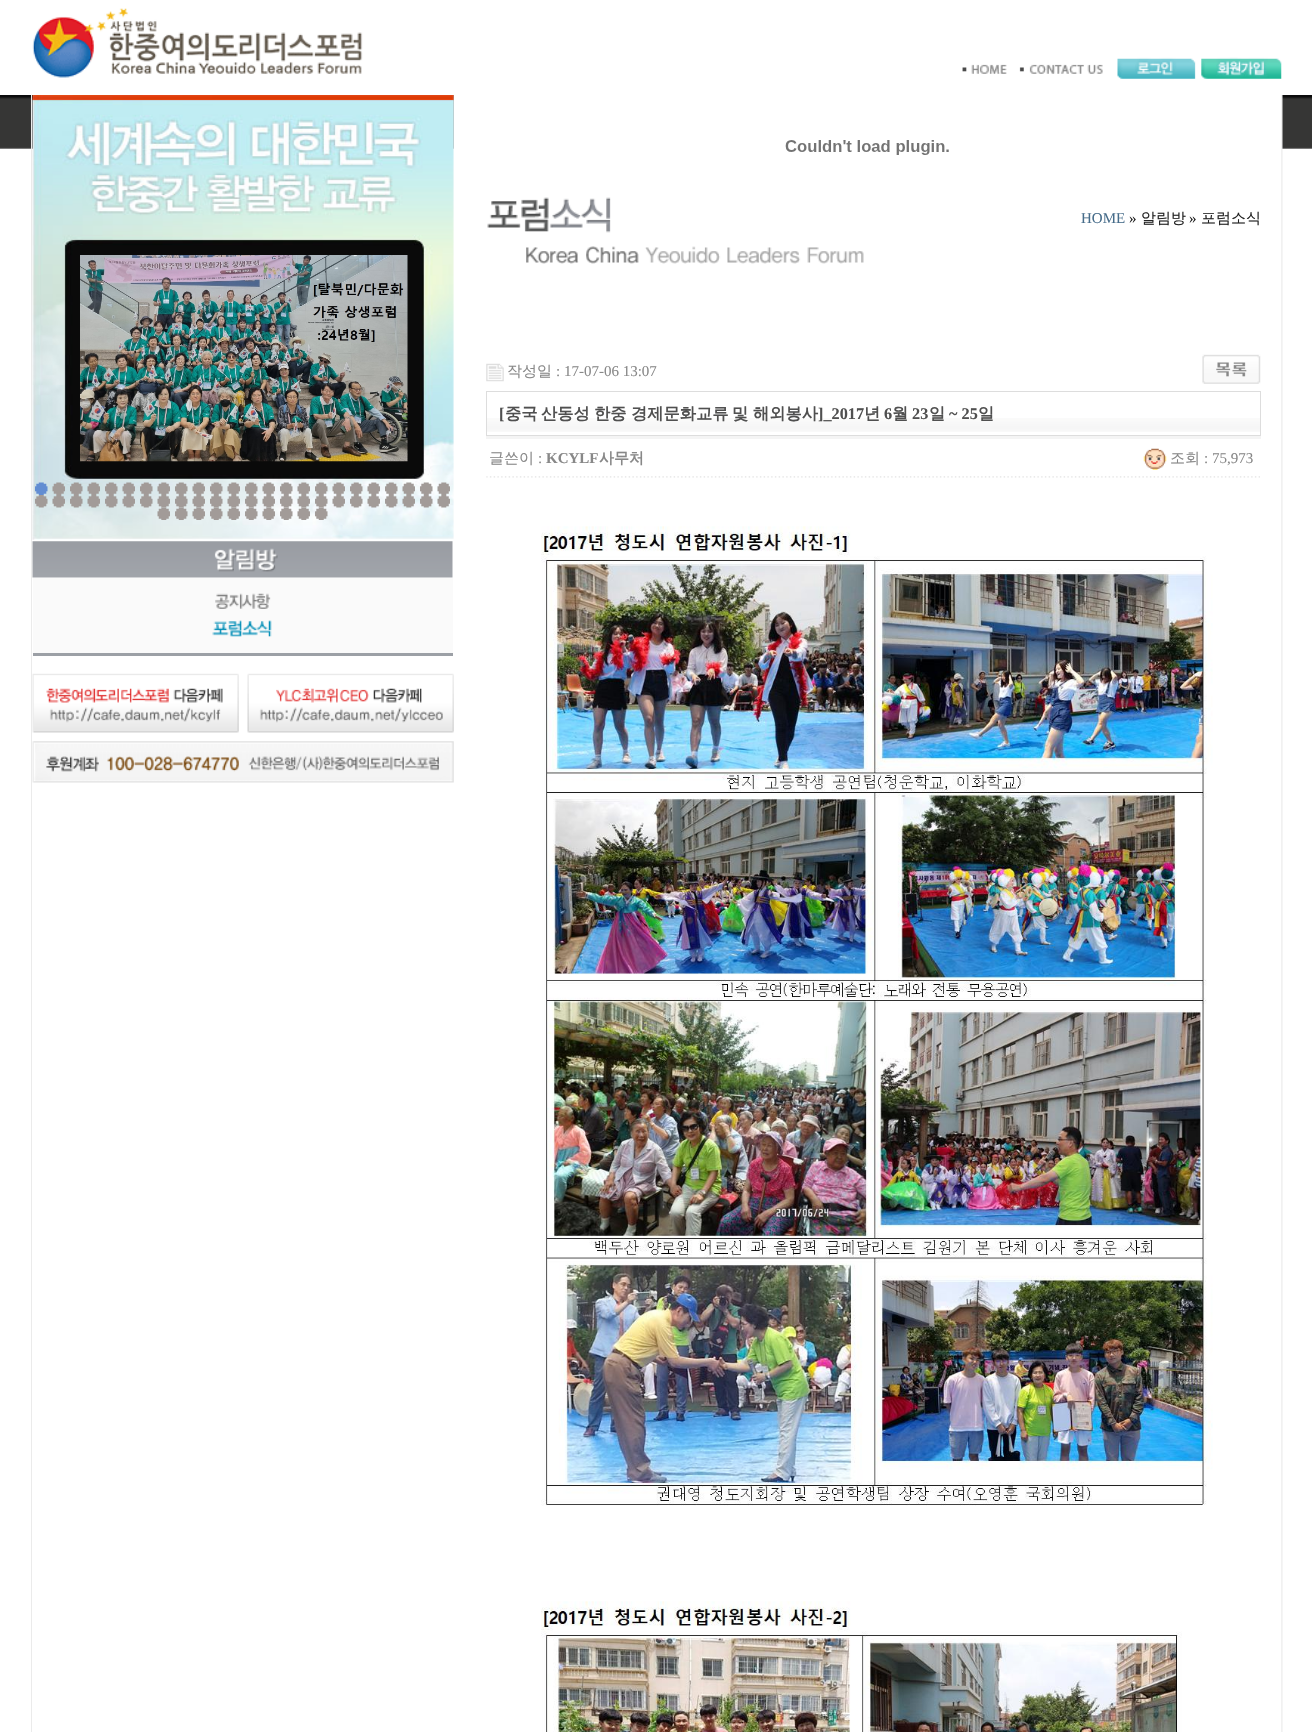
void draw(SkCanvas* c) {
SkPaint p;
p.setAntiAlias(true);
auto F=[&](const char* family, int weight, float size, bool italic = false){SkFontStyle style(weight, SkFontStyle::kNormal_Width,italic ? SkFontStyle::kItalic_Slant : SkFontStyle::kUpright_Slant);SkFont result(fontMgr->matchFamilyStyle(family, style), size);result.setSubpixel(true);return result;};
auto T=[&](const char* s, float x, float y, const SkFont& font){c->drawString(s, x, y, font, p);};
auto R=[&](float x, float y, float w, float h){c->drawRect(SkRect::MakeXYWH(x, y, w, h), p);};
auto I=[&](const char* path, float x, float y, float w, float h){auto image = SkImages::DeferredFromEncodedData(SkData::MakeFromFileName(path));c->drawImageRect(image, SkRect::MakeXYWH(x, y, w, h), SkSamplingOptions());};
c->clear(0xffffffff);
I("1.png",32,8,331,70);
I("2.png",962,57,320,23);
I("3.png",0,95,1312,54);
I("4.png",32,95,422,445);
p.setColor(0xffebebeb);
R(31,95,1,1637);
I("5.png",80,255,328,207);
I("6.png",35,482,13,13);
I("7.png",52,482,13,13);
I("8.png",70,482,13,13);
I("9.png",87,482,13,13);
I("10.png",105,482,13,13);
I("11.png",122,482,13,13);
I("12.png",140,482,13,13);
I("13.png",157,482,13,13);
I("14.png",175,482,13,13);
I("15.png",192,482,13,13);
I("16.png",210,482,13,13);
I("17.png",227,482,13,13);
I("18.png",245,482,13,13);
I("19.png",262,482,13,13);
I("20.png",280,482,13,13);
I("21.png",297,482,13,13);
I("22.png",315,482,13,13);
I("23.png",332,482,13,13);
I("24.png",350,482,13,13);
I("25.png",367,482,13,13);
I("26.png",385,482,13,13);
I("27.png",402,482,13,13);
I("28.png",420,482,13,13);
I("29.png",437,482,13,13);
I("30.png",35,495,13,13);
I("31.png",52,495,13,13);
I("32.png",70,495,13,13);
I("33.png",87,495,13,13);
I("34.png",105,495,13,13);
I("35.png",122,495,13,13);
I("36.png",140,495,13,13);
I("37.png",157,495,13,13);
I("38.png",175,495,13,13);
I("39.png",192,495,13,13);
I("40.png",210,495,13,13);
I("41.png",227,495,13,13);
I("42.png",245,495,13,13);
I("43.png",262,495,13,13);
I("44.png",280,495,13,13);
I("45.png",297,495,13,13);
I("46.png",315,495,13,13);
I("47.png",332,495,13,13);
I("48.png",350,495,13,13);
I("49.png",367,495,13,13);
I("50.png",385,495,13,13);
I("51.png",402,495,13,13);
I("52.png",420,495,13,13);
I("53.png",437,495,13,13);
I("54.png",157,507,13,13);
I("55.png",175,507,13,13);
I("56.png",192,507,13,13);
I("57.png",210,507,13,13);
I("58.png",227,507,13,13);
I("59.png",245,507,13,13);
I("60.png",262,507,13,13);
I("61.png",280,507,13,13);
I("62.png",297,507,13,13);
I("63.png",315,507,13,13);
I("64.png",32,541,421,37);
p.setColor(0xfffafafa);
R(33,578,420,75);
I("65.png",215,593,56,16);
I("66.png",212,620,60,17);
p.setColor(0xff9ca0a6);
R(33,653,420,3);
I("67.png",32,673,207,60);
I("70.png",453,95,830,1637);
I("68.png",247,673,207,60);
I("69.png",32,741,422,42);
I("71.png",785,140,164,15);
I("72.png",487,197,124,36);
auto f1 = F("Liberation Serif",400,15);
p.setColor(0xff466c8a);
T("HOME",1081,223,f1);
p.setColor(0xff222222);
T("»",1129,223,f1);
auto f2 = F("WenQuanYi Zen Hei",500,15);
T("알림방",1141,223,f2);
T("»",1189,223,f1);
T("포럼소식",1201,223,f2);
I("73.png",526,246,338,18);
I("74.png",486,363,18,19);
p.setColor(0xff888888);
T("작성일",507,376,f2);
T(": 17-07-06 13:07",556,376,f1);
I("75.png",1202,354,59,30);
I("76.png",487,418,773,14);
p.setStroke(true);
p.setStrokeWidth(1);
p.setColor(0xffdddddd);
c->drawRect(SkRect::MakeXYWH(486.5,391.5,774,44),p);
auto f3 = F("Liberation Serif",700,16.25);
p.setStroke(false);
p.setColor(0xff505050);
T("[",499,419,f3);
auto f4 = F("WenQuanYi Zen Hei",700,16.25);
T("중국",505,419,f4);
T("산동성",541,419,f4);
T("한중",594,419,f4);
T("경제문화교류",631,419,f4);
T("및",732,419,f4);
T("해외봉사",753,419,f4);
T("]_2017",818,419,f3);
T("년",864,419,f4);
T("6",884,419,f3);
T("월",892,419,f4);
T("23",912,419,f3);
T("일",929,419,f4);
T("~ 25",949,419,f3);
T("일",978,419,f4);
p.setColor(0xfff4f4f4);
R(486,436,775,3);
I("77.png",486,476,774,2);
p.setColor(0xff888888);
T("글쓴이",489,463,f2);
T(":",538,463,f1);
auto f5 = F("Liberation Serif",700,15);
T("KCYLF",546,463,f5);
auto f6 = F("WenQuanYi Zen Hei",700,15);
T("사무처",599,463,f6);
I("78.png",1143,448,24,22);
T("조회",1170,463,f2);
T(": 75,973",1204,463,f1);
I("79.png",541,526,672,980);
I("80.png",541,1601,641,131);
}
